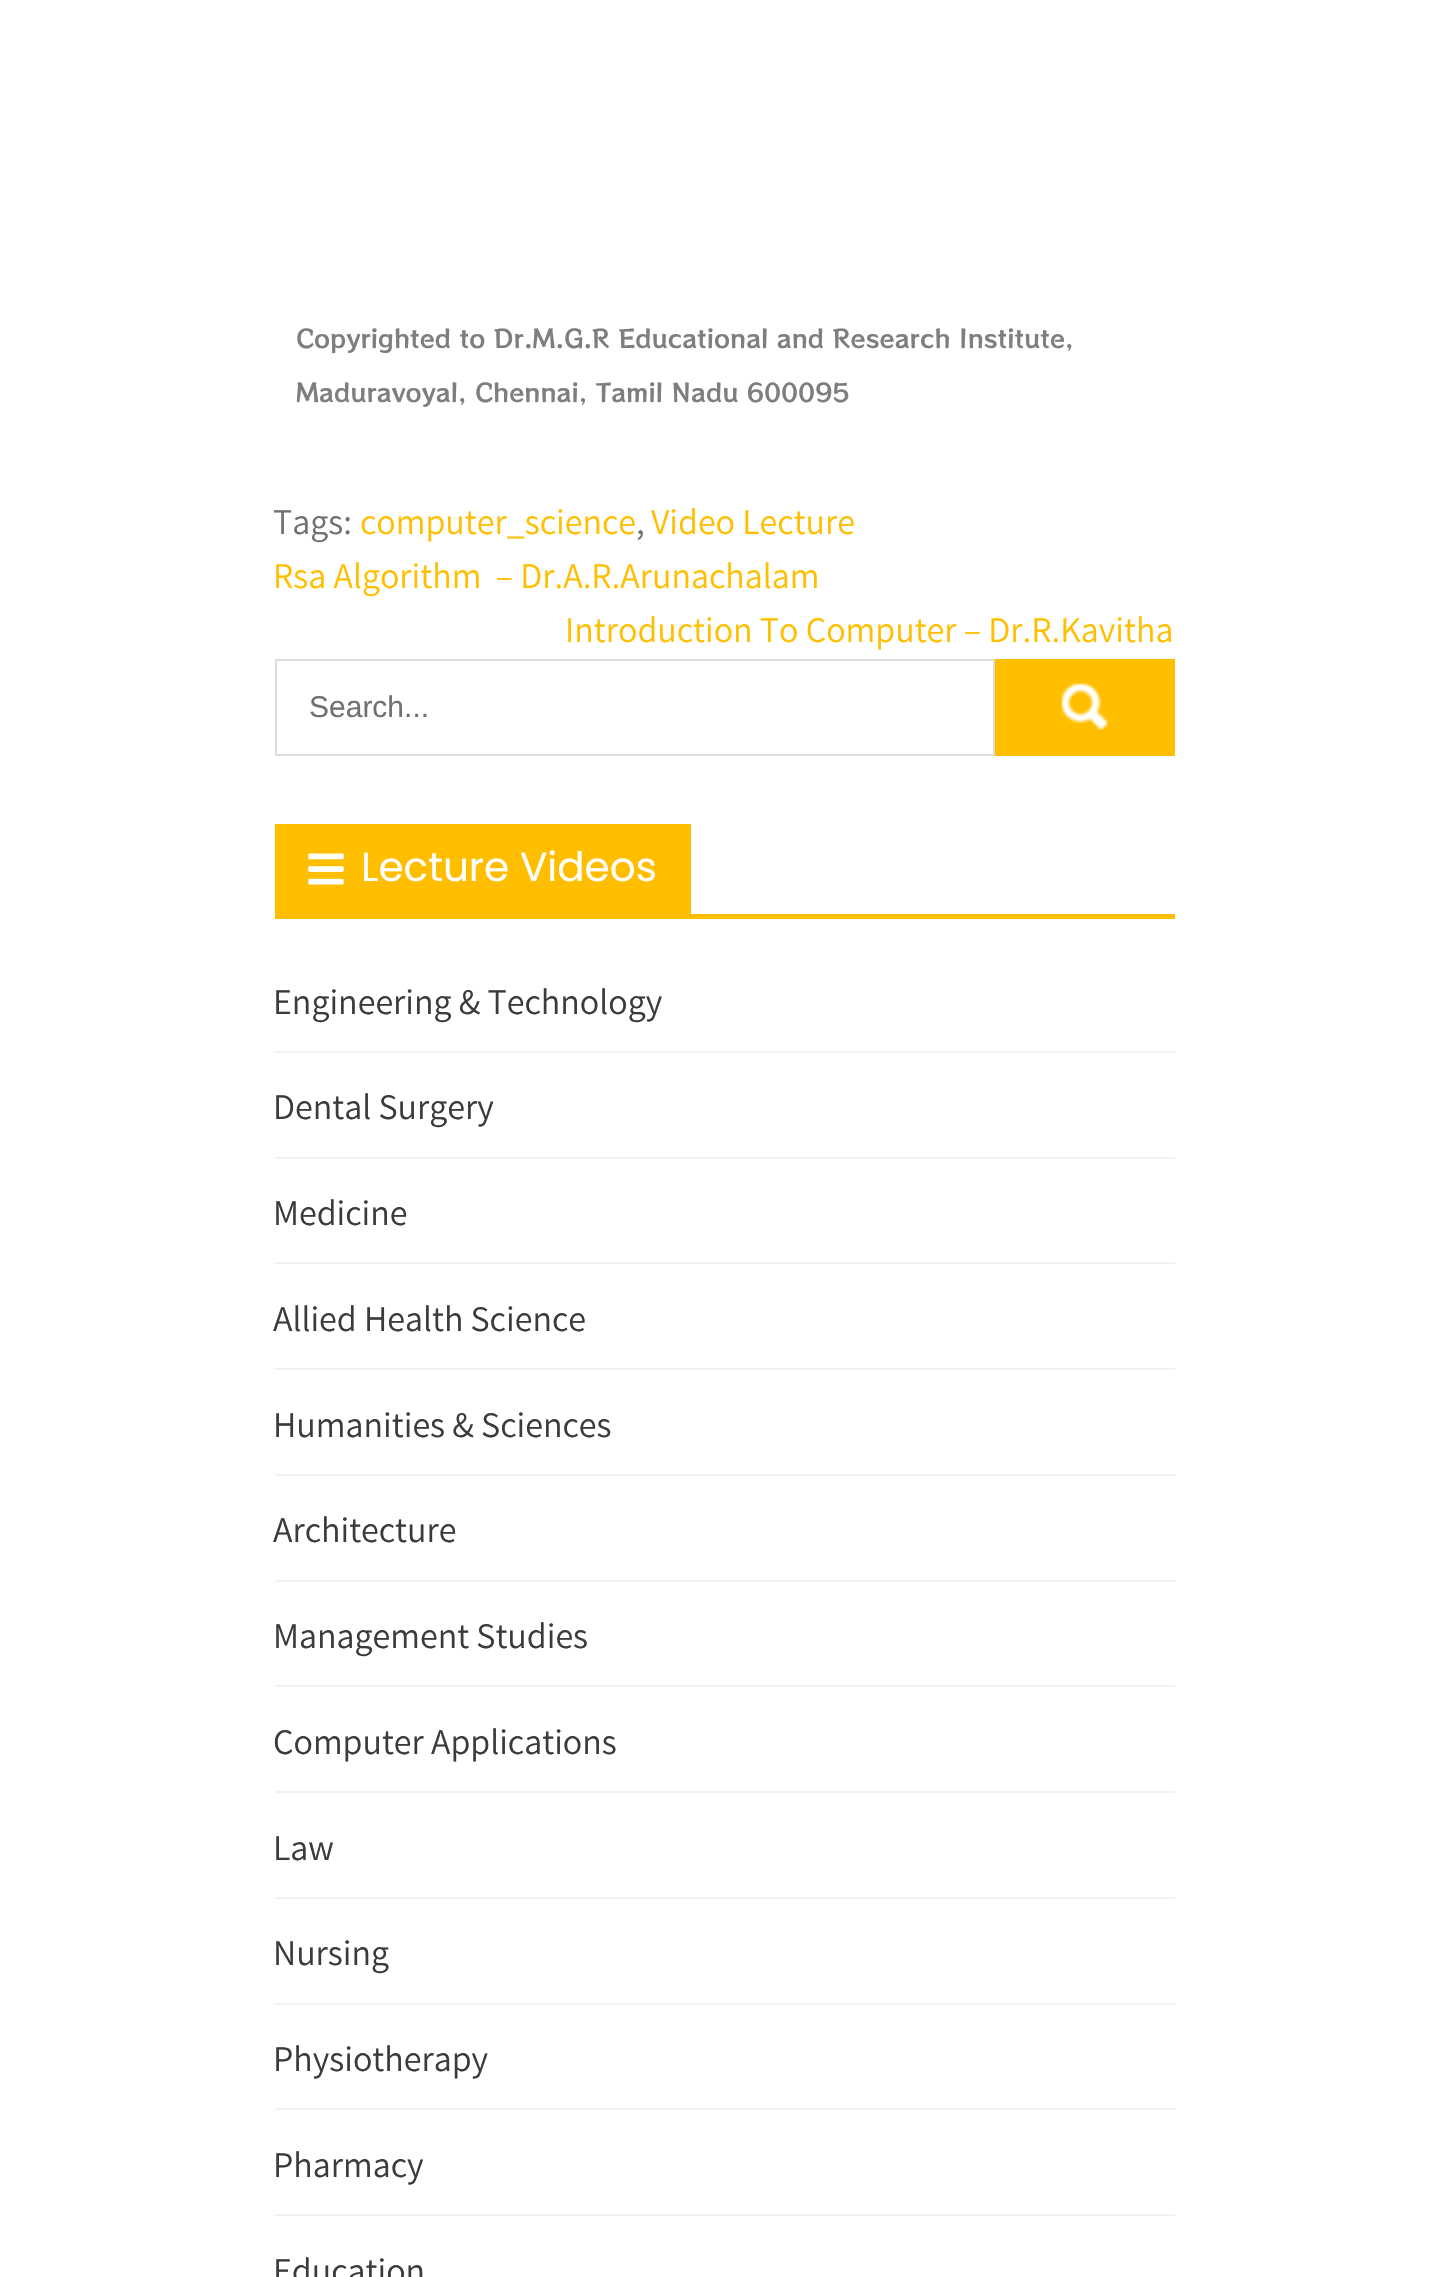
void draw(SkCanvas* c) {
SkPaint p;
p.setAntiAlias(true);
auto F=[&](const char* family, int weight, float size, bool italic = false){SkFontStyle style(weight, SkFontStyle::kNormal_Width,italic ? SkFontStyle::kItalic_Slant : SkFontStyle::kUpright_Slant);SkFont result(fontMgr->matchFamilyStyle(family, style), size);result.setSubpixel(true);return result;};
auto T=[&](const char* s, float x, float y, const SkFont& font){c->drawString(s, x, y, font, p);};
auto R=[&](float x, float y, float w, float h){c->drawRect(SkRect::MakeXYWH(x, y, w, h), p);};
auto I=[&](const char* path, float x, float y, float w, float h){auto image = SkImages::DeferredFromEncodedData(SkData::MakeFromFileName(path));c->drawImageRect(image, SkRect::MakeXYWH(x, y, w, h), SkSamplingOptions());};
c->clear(0xffffffff);
auto f1 = F("RocknRoll One",400,24.75);
p.setColor(0xff7e7e7e);
T("Copyrighted to Dr.M.G.R Educational and Research Institute,",296,348,f1);
T("Maduravoyal, Chennai, Tamil Nadu 600095",296,402,f1);
auto f2 = F("Assistant",400,36);
p.setColor(0xff717171);
T("Tags:",273,534,f2);
p.setColor(0xffffbf00);
T("computer_science",360,534,f2);
p.setColor(0xff717171);
T(",",636,534,f2);
p.setColor(0xffffbf00);
T("Video Lecture",651,534,f2);
T("Rsa Algorithm  – Dr.A.R.Arunachalam",273,588,f2);
T("Introduction To Computer – Dr.R.Kavitha",565,642,f2);
p.setStroke(true);
p.setStrokeWidth(2);
p.setColor(0xffdddddd);
c->drawRect(SkRect::MakeXYWH(276,660,718,95),p);
auto f3 = F("Liberation Sans",400,30);
p.setStroke(false);
p.setColor(0xff717171);
T("Search...",309,717,f3);
p.setColor(0xffffbf00);
R(995,659,180,97);
I("1.png",1061,683,47,47);
R(275,914,900,5);
R(275,824,416,90);
I("2.png",308,853,36,32);
auto f4 = F("Poppins",400,40.5);
p.setColor(0xffffffff);
T("Lecture Videos",361,881,f4);
p.setColor(0xfff2f2f2);
R(275,1051,900,2);
p.setColor(0xff3b3b3b);
T("Engineering & Technology",273,1014,f2);
p.setColor(0xfff2f2f2);
R(275,1157,900,2);
p.setColor(0xff3b3b3b);
T("Dental Surgery",273,1119,f2);
p.setColor(0xfff2f2f2);
R(275,1262,900,2);
p.setColor(0xff3b3b3b);
T("Medicine",273,1225,f2);
p.setColor(0xfff2f2f2);
R(275,1368,900,2);
p.setColor(0xff3b3b3b);
T("Allied Health Science",273,1331,f2);
p.setColor(0xfff2f2f2);
R(275,1474,900,2);
p.setColor(0xff3b3b3b);
T("Humanities & Sciences",273,1437,f2);
p.setColor(0xfff2f2f2);
R(275,1580,900,2);
p.setColor(0xff3b3b3b);
T("Architecture",273,1542,f2);
p.setColor(0xfff2f2f2);
R(275,1685,900,2);
p.setColor(0xff3b3b3b);
T("Management Studies",273,1648,f2);
p.setColor(0xfff2f2f2);
R(275,1791,900,2);
p.setColor(0xff3b3b3b);
T("Computer Applications",273,1754,f2);
p.setColor(0xfff2f2f2);
R(275,1897,900,2);
p.setColor(0xff3b3b3b);
T("Law",273,1860,f2);
p.setColor(0xfff2f2f2);
R(275,2003,900,2);
p.setColor(0xff3b3b3b);
T("Nursing",273,1965,f2);
p.setColor(0xfff2f2f2);
R(275,2108,900,2);
p.setColor(0xff3b3b3b);
T("Physiotherapy",273,2071,f2);
p.setColor(0xfff2f2f2);
R(275,2214,900,2);
p.setColor(0xff3b3b3b);
T("Pharmacy",273,2177,f2);
T("Education",273,2283,f2);
}
